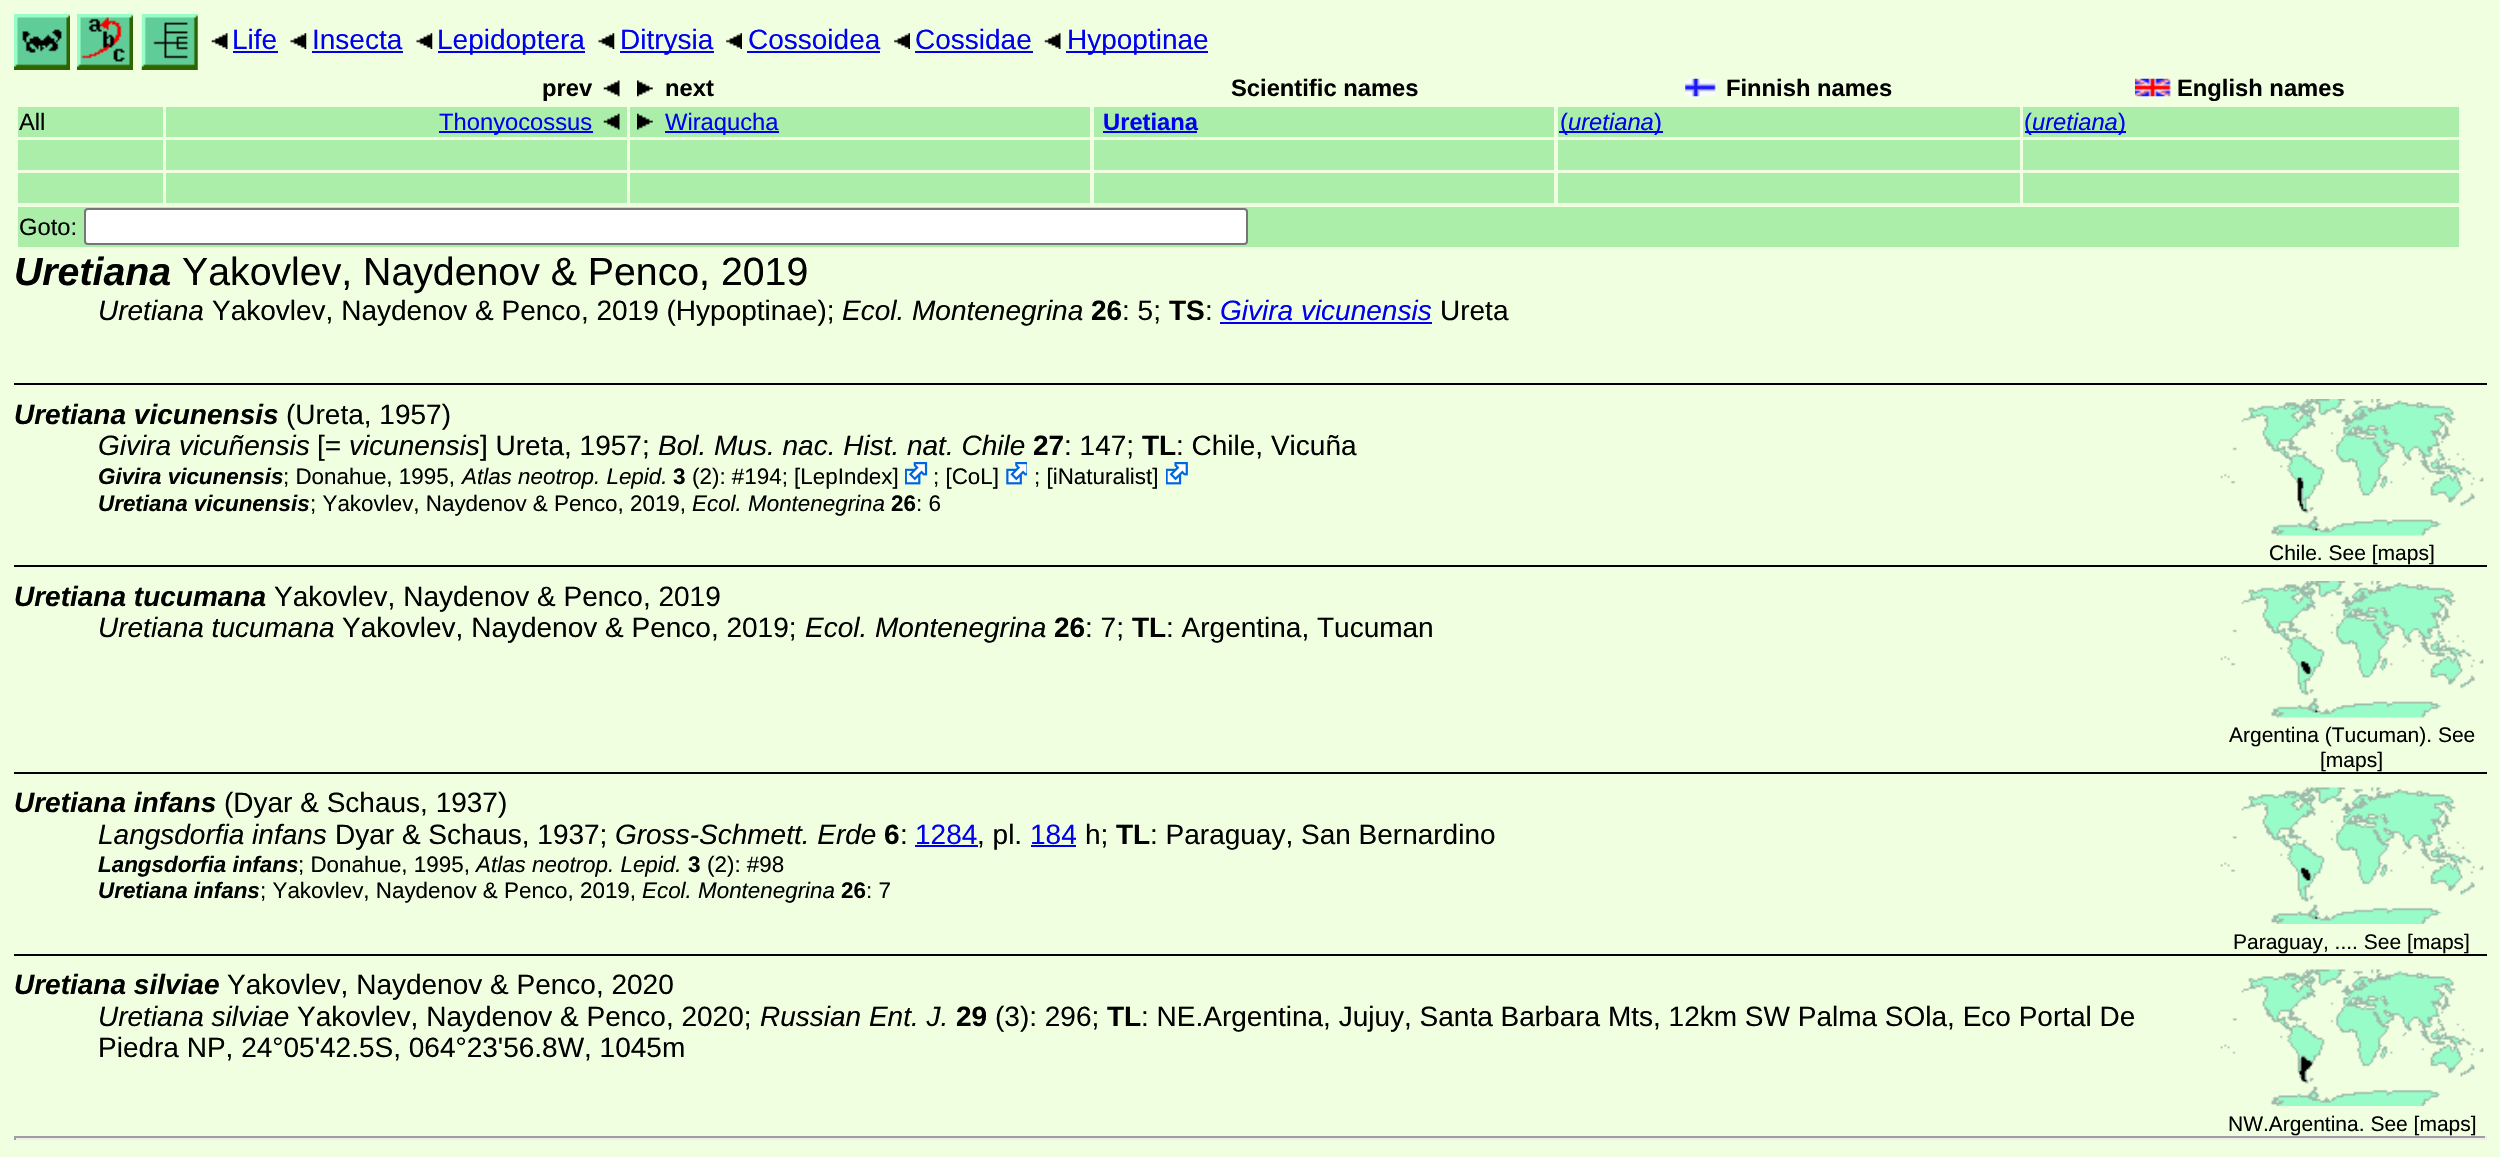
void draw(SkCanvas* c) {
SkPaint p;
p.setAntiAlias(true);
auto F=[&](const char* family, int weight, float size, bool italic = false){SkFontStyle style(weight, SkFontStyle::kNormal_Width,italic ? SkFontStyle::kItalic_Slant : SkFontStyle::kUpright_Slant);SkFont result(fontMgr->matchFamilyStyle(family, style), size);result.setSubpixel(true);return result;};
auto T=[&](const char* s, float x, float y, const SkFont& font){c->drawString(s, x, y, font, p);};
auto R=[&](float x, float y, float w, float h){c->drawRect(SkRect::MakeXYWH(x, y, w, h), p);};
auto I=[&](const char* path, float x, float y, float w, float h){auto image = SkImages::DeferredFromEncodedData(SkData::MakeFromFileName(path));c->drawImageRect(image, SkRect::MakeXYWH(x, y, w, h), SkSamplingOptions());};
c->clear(0xfff0ffe0);
I("1.png",14,14,56,56);
I("2.png",77,14,56,56);
I("3.png",141,14,57,56);
I("4.png",211,33,17,16);
auto f1 = F("Liberation Sans",400,28);
p.setColor(0xff0000ee);
T("Life",232,49,f1);
R(233,51,45,2);
I("5.png",290,33,17,16);
T("Insecta",312,49,f1);
R(312,51,91,2);
I("6.png",416,33,17,16);
R(438,51,147,2);
T("Lepidoptera",437,49,f1);
I("7.png",598,33,17,16);
R(620,51,94,2);
T("Ditrysia",620,49,f1);
I("8.png",726,33,16,16);
T("Cossoidea",748,49,f1);
R(747,51,133,2);
I("8.png",894,33,16,16);
T("Cossidae",915,49,f1);
R(915,51,118,2);
I("4.png",1044,33,17,16);
R(1066,51,142,2);
T("Hypoptinae",1067,49,f1);
auto f2 = F("Liberation Sans",700,23.75);
p.setColor(0xff000000);
T("prev",542,96,f2);
I("9.png",603,80,17,17);
I("10.png",637,80,16,17);
T("next",665,96,f2);
T("Scientific names",1231,96,f2);
I("11.png",1685,78,31,19);
T("Finnish names",1726,96,f2);
I("12.png",2135,78,36,19);
T("English names",2177,96,f2);
p.setColor(0xffaaeeaa);
R(18,107,145,30);
auto f3 = F("Liberation Sans",400,23.75);
p.setColor(0xff000000);
T("All",19,130,f3);
p.setColor(0xffaaeeaa);
R(166,107,461,30);
p.setColor(0xff0000ee);
R(439,131,154,2);
T("Thonyocossus",439,130,f3);
I("13.png",603,113,17,17);
p.setColor(0xffaaeeaa);
R(630,107,460,30);
I("14.png",637,113,16,17);
p.setColor(0xff0000ee);
R(665,131,114,2);
T("Wiraqucha",665,130,f3);
p.setColor(0xffaaeeaa);
R(1094,107,460,30);
p.setColor(0xff0000ee);
T("Uretiana",1103,130,f2);
R(1103,131,94,2);
p.setColor(0xffaaeeaa);
R(1558,107,462,30);
p.setColor(0xff0000ee);
R(1559,131,104,2);
T("(",1560,130,f3);
auto f4 = F("Liberation Sans",400,23.75,true);
T("uretiana",1568,130,f4);
T(")",1654,130,f3);
p.setColor(0xffaaeeaa);
R(2023,107,436,30);
p.setColor(0xff0000ee);
R(2025,131,101,2);
T("(",2024,130,f3);
T("uretiana",2032,130,f4);
T(")",2118,130,f3);
p.setColor(0xffaaeeaa);
R(18,140,145,30);
R(166,140,461,30);
R(630,140,460,30);
R(1094,140,460,30);
R(1558,140,462,30);
R(2023,140,436,30);
R(18,173,145,30);
R(166,173,461,30);
R(630,173,460,30);
R(1094,173,460,30);
R(1558,173,462,30);
R(2023,173,436,30);
R(18,207,2441,40);
p.setColor(0xff000000);
T("Goto:",19,235,f3);
p.setColor(0xffffffff);
c->drawRoundRect(SkRect::MakeXYWH(85,209,1162,35),3,3,p);
p.setStroke(true);
p.setStrokeWidth(2);
p.setColor(0xff767676);
c->drawRoundRect(SkRect::MakeXYWH(85,209,1162,35),3,3,p);
auto f5 = F("Liberation Sans",700,39.25,true);
p.setStroke(false);
p.setColor(0xff000000);
T("Uretiana",14,285,f5);
auto f6 = F("Liberation Sans",400,39.25);
T("Yakovlev, Naydenov & Penco, 2019",182,285,f6);
auto f7 = F("Liberation Sans",400,28,true);
T("Uretiana",98,320,f7);
T("Yakovlev, Naydenov & Penco, 2019 (Hypoptinae);",212,320,f1);
T("Ecol. Montenegrina",842,320,f7);
auto f8 = F("Liberation Sans",700,28);
T("26",1091,320,f8);
T(": 5;",1122,320,f1);
T("TS",1169,320,f8);
T(":",1205,320,f1);
p.setColor(0xff0000ee);
T("Givira vicunensis",1220,320,f7);
R(1220,322,212,2);
p.setColor(0xff000000);
T("Ureta",1440,320,f1);
R(14,383,2473,2);
auto f9 = F("Liberation Sans",700,28,true);
T("Uretiana vicunensis",14,424,f9);
T("(Ureta, 1957)",286,424,f1);
T("Givira vicuñensis",98,455,f7);
T("[=",317,455,f1);
T("vicunensis",349,455,f7);
T("] Ureta, 1957;",480,455,f1);
T("Bol. Mus. nac. Hist. nat. Chile",658,455,f7);
T("27",1033,455,f8);
T(": 147;",1064,455,f1);
T("TL",1142,455,f8);
T(": Chile, Vicuña",1176,455,f1);
auto f10 = F("Liberation Sans",700,22.4,true);
T("Givira vicunensis",98,484,f10);
auto f11 = F("Liberation Sans",400,22.4);
T("; Donahue, 1995,",283,484,f11);
auto f12 = F("Liberation Sans",400,22.4,true);
T("Atlas neotrop. Lepid.",462,484,f12);
auto f13 = F("Liberation Sans",700,22.4);
T("3",673,484,f13);
T("(2): #194; [LepIndex]",692,484,f11);
I("15.png",905,462,23,23);
T("; [CoL]",933,484,f11);
I("16.png",1006,462,21,23);
T("; [iNaturalist]",1034,484,f11);
I("17.png",1166,462,22,23);
T("Uretiana vicunensis",98,511,f10);
T("; Yakovlev, Naydenov & Penco, 2019,",310,511,f11);
T("Ecol. Montenegrina",692,511,f12);
T("26",891,511,f13);
T(": 6",916,511,f11);
I("18.png",2220,399,264,137);
auto f14 = F("Liberation Sans",400,21);
T("Chile. See [maps]",2269,560,f14);
R(14,565,2473,2);
T("Uretiana tucumana",14,606,f9);
T("Yakovlev, Naydenov & Penco, 2019",274,606,f1);
T("Uretiana tucumana",98,637,f7);
T("Yakovlev, Naydenov & Penco, 2019;",342,637,f1);
T("Ecol. Montenegrina",805,637,f7);
T("26",1054,637,f8);
T(": 7;",1085,637,f1);
T("TL",1132,637,f8);
T(": Argentina, Tucuman",1166,637,f1);
I("19.png",2220,581,264,137);
T("Argentina (Tucuman). See",2229,742,f14);
T("[maps]",2320,767,f14);
R(14,772,2473,2);
T("Uretiana infans",14,812,f9);
T("(Dyar & Schaus, 1937)",224,812,f1);
T("Langsdorfia infans",98,844,f7);
T("Dyar & Schaus, 1937;",335,844,f1);
T("Gross-Schmett. Erde",615,844,f7);
T("6",884,844,f8);
T(":",900,844,f1);
p.setColor(0xff0000ee);
T("1284",915,844,f1);
R(915,845,63,2);
p.setColor(0xff000000);
T(", pl.",977,844,f1);
p.setColor(0xff0000ee);
T("184",1030,844,f1);
R(1031,845,45,2);
p.setColor(0xff000000);
T("h;",1085,844,f1);
T("TL",1116,844,f8);
T(": Paraguay, San Bernardino",1150,844,f1);
T("Langsdorfia infans",98,872,f10);
T("; Donahue, 1995,",298,872,f11);
T("Atlas neotrop. Lepid.",476,872,f12);
T("3",688,872,f13);
T("(2): #98",707,872,f11);
T("Uretiana infans",98,898,f10);
T("; Yakovlev, Naydenov & Penco, 2019,",260,898,f11);
T("Ecol. Montenegrina",642,898,f12);
T("26",841,898,f13);
T(": 7",866,898,f11);
I("20.png",2220,787,264,137);
T("Paraguay, .... See [maps]",2233,949,f14);
R(14,954,2473,2);
T("Uretiana silviae",14,994,f9);
T("Yakovlev, Naydenov & Penco, 2020",227,994,f1);
T("Uretiana silviae",98,1026,f7);
T("Yakovlev, Naydenov & Penco, 2020;",297,1026,f1);
T("Russian Ent. J.",760,1026,f7);
T("29",956,1026,f8);
T("(3): 296;",995,1026,f1);
T("TL",1107,1026,f8);
T(": NE.Argentina, Jujuy, Santa Barbara Mts, 12km SW Palma SOla, Eco Portal De",1141,1026,f1);
T("Piedra NP, 24°05'42.5S, 064°23'56.8W, 1045m",98,1057,f1);
I("21.png",2220,969,264,137);
T("NW.Argentina. See [maps]",2228,1131,f14);
p.setColor(0xff9f9f9f);
R(14,1136,2473,2);
p.setColor(0xffeeeeee);
R(2485,1136,2,4);
R(14,1138,2473,2);
p.setColor(0xff9f9f9f);
R(14,1136,2,4);
}
